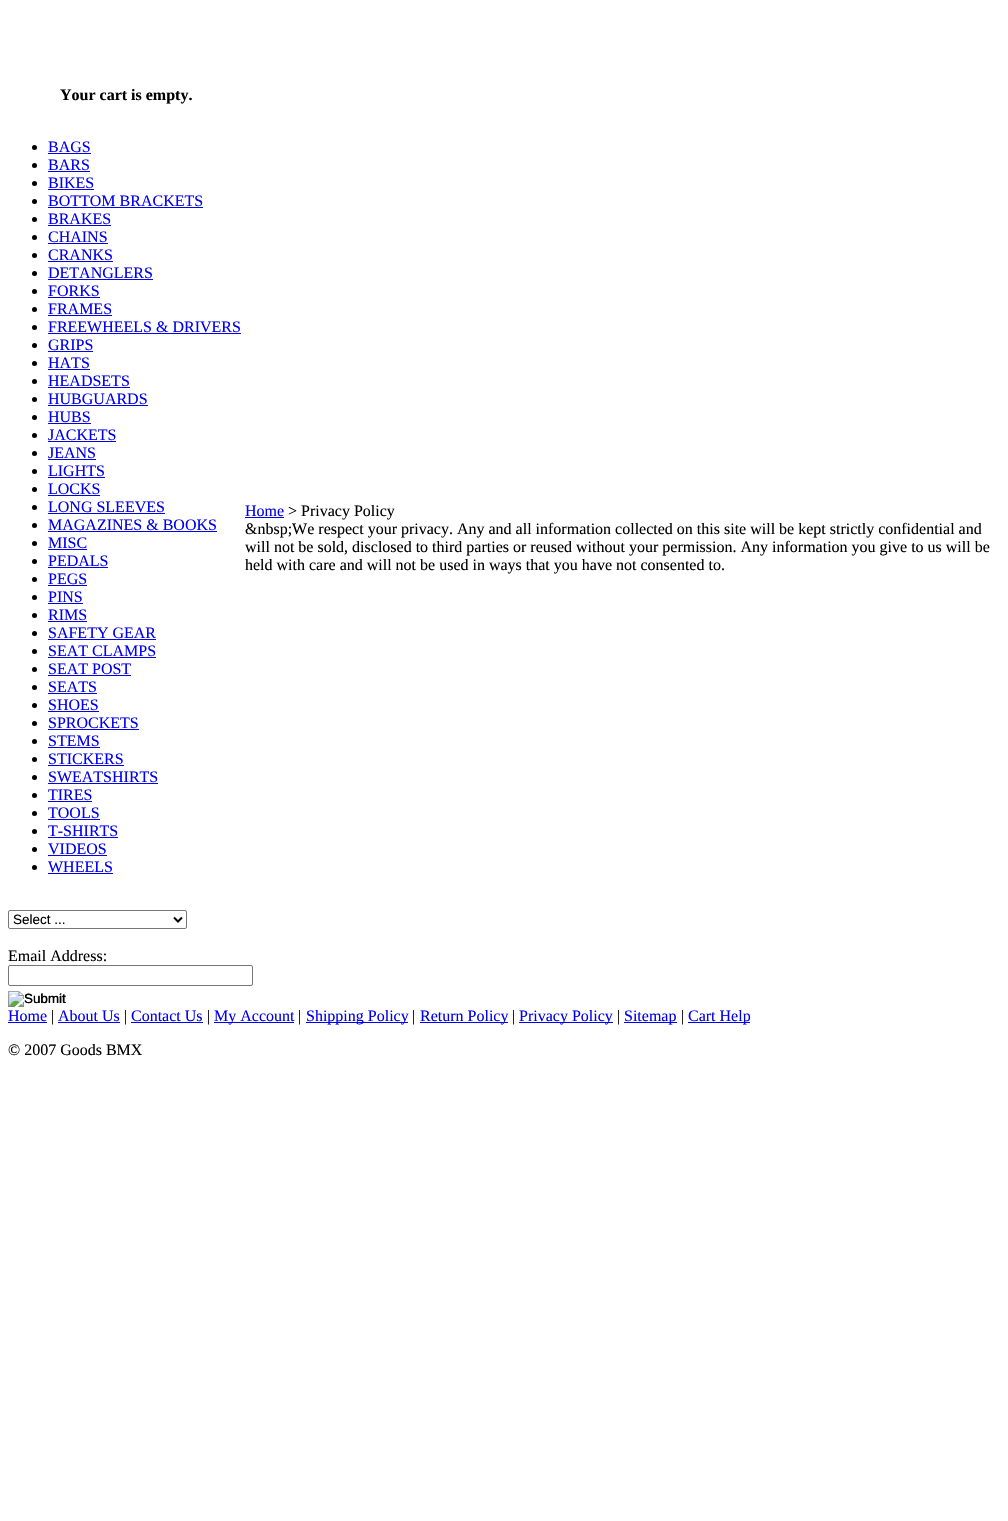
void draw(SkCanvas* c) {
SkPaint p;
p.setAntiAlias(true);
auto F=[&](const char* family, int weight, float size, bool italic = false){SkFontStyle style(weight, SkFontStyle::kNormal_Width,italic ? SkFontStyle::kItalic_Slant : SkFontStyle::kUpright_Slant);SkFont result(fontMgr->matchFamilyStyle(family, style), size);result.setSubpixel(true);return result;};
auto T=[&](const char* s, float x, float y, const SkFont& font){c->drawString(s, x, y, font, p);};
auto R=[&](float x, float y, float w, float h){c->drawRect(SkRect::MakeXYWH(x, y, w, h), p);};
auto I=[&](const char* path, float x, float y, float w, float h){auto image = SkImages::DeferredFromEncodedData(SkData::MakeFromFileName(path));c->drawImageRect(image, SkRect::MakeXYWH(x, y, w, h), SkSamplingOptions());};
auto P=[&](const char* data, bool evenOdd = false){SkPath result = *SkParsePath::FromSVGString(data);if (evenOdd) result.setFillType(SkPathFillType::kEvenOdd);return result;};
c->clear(0xffffffff);
auto f1 = F("Liberation Serif",700,16);
p.setColor(0xff000000);
T("Your cart is empty.",60,100,f1);
c->drawCircle(34.5,147.5,2.5,p);
auto f2 = F("Liberation Serif",400,16);
p.setColor(0xff0000ee);
T("BAGS",48,152,f2);
R(48,153,43,1);
p.setColor(0xff000000);
c->drawCircle(34.5,165.5,2.5,p);
p.setColor(0xff0000ee);
T("BARS",48,170,f2);
R(48,171,42,1);
p.setColor(0xff000000);
c->drawCircle(34.5,183.5,2.5,p);
p.setColor(0xff0000ee);
T("BIKES",48,188,f2);
R(48,189,46,1);
p.setColor(0xff000000);
c->drawCircle(34.5,201.5,2.5,p);
p.setColor(0xff0000ee);
T("BOTTOM BRACKETS",48,206,f2);
R(48,207,155,1);
p.setColor(0xff000000);
c->drawCircle(34.5,219.5,2.5,p);
p.setColor(0xff0000ee);
T("BRAKES",48,224,f2);
R(48,225,63,1);
p.setColor(0xff000000);
c->drawCircle(34.5,237.5,2.5,p);
p.setColor(0xff0000ee);
T("CHAINS",48,242,f2);
R(48,243,60,1);
p.setColor(0xff000000);
c->drawCircle(34.5,255.5,2.5,p);
p.setColor(0xff0000ee);
T("CRANKS",48,260,f2);
R(48,261,65,1);
p.setColor(0xff000000);
c->drawCircle(34.5,273.5,2.5,p);
p.setColor(0xff0000ee);
T("DETANGLERS",48,278,f2);
R(48,279,105,1);
p.setColor(0xff000000);
c->drawCircle(34.5,291.5,2.5,p);
p.setColor(0xff0000ee);
T("FORKS",48,296,f2);
R(48,297,52,1);
p.setColor(0xff000000);
c->drawCircle(34.5,309.5,2.5,p);
p.setColor(0xff0000ee);
T("FRAMES",48,314,f2);
R(48,315,64,1);
p.setColor(0xff000000);
c->drawCircle(34.5,327.5,2.5,p);
p.setColor(0xff0000ee);
T("FREEWHEELS & DRIVERS",48,332,f2);
R(48,333,193,1);
p.setColor(0xff000000);
c->drawCircle(34.5,345.5,2.5,p);
p.setColor(0xff0000ee);
T("GRIPS",48,350,f2);
R(48,351,45,1);
p.setColor(0xff000000);
c->drawCircle(34.5,363.5,2.5,p);
p.setColor(0xff0000ee);
T("HATS",48,368,f2);
R(48,369,42,1);
p.setColor(0xff000000);
c->drawCircle(34.5,381.5,2.5,p);
p.setColor(0xff0000ee);
T("HEADSETS",48,386,f2);
R(48,387,82,1);
p.setColor(0xff000000);
c->drawCircle(34.5,399.5,2.5,p);
p.setColor(0xff0000ee);
T("HUBGUARDS",48,404,f2);
R(48,405,100,1);
p.setColor(0xff000000);
c->drawCircle(34.5,417.5,2.5,p);
p.setColor(0xff0000ee);
T("HUBS",48,422,f2);
R(48,423,43,1);
p.setColor(0xff000000);
c->drawCircle(34.5,435.5,2.5,p);
p.setColor(0xff0000ee);
T("JACKETS",48,440,f2);
R(48,441,68,1);
p.setColor(0xff000000);
c->drawCircle(34.5,453.5,2.5,p);
p.setColor(0xff0000ee);
T("JEANS",48,458,f2);
R(48,459,48,1);
p.setColor(0xff000000);
c->drawCircle(34.5,471.5,2.5,p);
p.setColor(0xff0000ee);
T("LIGHTS",48,476,f2);
R(48,477,57,1);
p.setColor(0xff000000);
c->drawCircle(34.5,489.5,2.5,p);
p.setColor(0xff0000ee);
T("LOCKS",48,494,f2);
R(48,495,52,1);
p.setColor(0xff000000);
c->drawCircle(34.5,507.5,2.5,p);
p.setColor(0xff0000ee);
T("LONG SLEEVES",48,512,f2);
R(48,513,117,1);
p.setColor(0xff000000);
c->drawCircle(34.5,525.5,2.5,p);
p.setColor(0xff0000ee);
T("MAGAZINES & BOOKS",48,530,f2);
R(48,531,169,1);
p.setColor(0xff000000);
c->drawCircle(34.5,543.5,2.5,p);
p.setColor(0xff0000ee);
T("MISC",48,548,f2);
R(48,549,39,1);
p.setColor(0xff000000);
c->drawCircle(34.5,561.5,2.5,p);
p.setColor(0xff0000ee);
T("PEDALS",48,566,f2);
R(48,567,60,1);
p.setColor(0xff000000);
c->drawCircle(34.5,579.5,2.5,p);
p.setColor(0xff0000ee);
T("PEGS",48,584,f2);
R(48,585,39,1);
p.setColor(0xff000000);
c->drawCircle(34.5,597.5,2.5,p);
p.setColor(0xff0000ee);
T("PINS",48,602,f2);
R(48,603,35,1);
p.setColor(0xff000000);
c->drawCircle(34.5,615.5,2.5,p);
p.setColor(0xff0000ee);
T("RIMS",48,620,f2);
R(48,621,39,1);
p.setColor(0xff000000);
c->drawCircle(34.5,633.5,2.5,p);
p.setColor(0xff0000ee);
T("SAFETY GEAR",48,638,f2);
R(48,639,108,1);
p.setColor(0xff000000);
c->drawCircle(34.5,651.5,2.5,p);
p.setColor(0xff0000ee);
T("SEAT CLAMPS",48,656,f2);
R(48,657,108,1);
p.setColor(0xff000000);
c->drawCircle(34.5,669.5,2.5,p);
p.setColor(0xff0000ee);
T("SEAT POST",48,674,f2);
R(48,675,83,1);
p.setColor(0xff000000);
c->drawCircle(34.5,687.5,2.5,p);
p.setColor(0xff0000ee);
T("SEATS",48,692,f2);
R(48,693,49,1);
p.setColor(0xff000000);
c->drawCircle(34.5,705.5,2.5,p);
p.setColor(0xff0000ee);
T("SHOES",48,710,f2);
R(48,711,51,1);
p.setColor(0xff000000);
c->drawCircle(34.5,723.5,2.5,p);
p.setColor(0xff0000ee);
T("SPROCKETS",48,728,f2);
R(48,729,91,1);
p.setColor(0xff000000);
c->drawCircle(34.5,741.5,2.5,p);
p.setColor(0xff0000ee);
T("STEMS",48,746,f2);
R(48,747,52,1);
p.setColor(0xff000000);
c->drawCircle(34.5,759.5,2.5,p);
p.setColor(0xff0000ee);
T("STICKERS",48,764,f2);
R(48,765,76,1);
p.setColor(0xff000000);
c->drawCircle(34.5,777.5,2.5,p);
p.setColor(0xff0000ee);
T("SWEATSHIRTS",48,782,f2);
R(48,783,110,1);
p.setColor(0xff000000);
c->drawCircle(34.5,795.5,2.5,p);
p.setColor(0xff0000ee);
T("TIRES",48,800,f2);
R(48,801,44,1);
p.setColor(0xff000000);
c->drawCircle(34.5,813.5,2.5,p);
p.setColor(0xff0000ee);
T("TOOLS",48,818,f2);
R(48,819,52,1);
p.setColor(0xff000000);
c->drawCircle(34.5,831.5,2.5,p);
p.setColor(0xff0000ee);
T("T-SHIRTS",48,836,f2);
R(48,837,70,1);
p.setColor(0xff000000);
c->drawCircle(34.5,849.5,2.5,p);
p.setColor(0xff0000ee);
T("VIDEOS",48,854,f2);
R(48,855,59,1);
p.setColor(0xff000000);
c->drawCircle(34.5,867.5,2.5,p);
p.setColor(0xff0000ee);
T("WHEELS",48,872,f2);
R(48,873,65,1);
p.setStroke(true);
p.setStrokeWidth(1);
p.setColor(0xff767676);
c->drawRoundRect(SkRect::MakeXYWH(8.5,910.5,178,18),1.5,1.5,p);
p.setStrokeWidth(2);
p.setColor(0xff000000);
c->drawPath(P("M174 917.5l4 4l4-4"),p);
auto f3 = F("Liberation Sans",400,13.5);
p.setStroke(false);
T("Select ...",13,924,f3);
T("Email Address:",8,961,f2);
p.setStroke(true);
p.setStrokeWidth(1);
p.setColor(0xff767676);
c->drawRoundRect(SkRect::MakeXYWH(8.5,965.5,244,20),1.5,1.5,p);
I("1.png",8,991,57,16);
p.setStroke(false);
p.setColor(0xff000000);
T("Submit",24,1003,f3);
p.setColor(0xff0000ee);
T("Home",245,516,f2);
R(245,517,39,1);
p.setColor(0xff000000);
T("> Privacy Policy",288,516,f2);
T("&nbsp;We respect your privacy. Any and all information collected on this site will be kept strictly confidential and",245,534,f2);
T("will not be sold, disclosed to third parties or reused without your permission. Any information you give to us will be",245,552,f2);
T("held with care and will not be used in ways that you have not consented to.",245,570,f2);
p.setColor(0xff0000ee);
T("Home",8,1021,f2);
R(8,1022,39,1);
p.setColor(0xff000000);
T("|",51,1021,f2);
p.setColor(0xff0000ee);
T("About Us",58,1021,f2);
R(58,1022,62,1);
p.setColor(0xff000000);
T("|",124,1021,f2);
p.setColor(0xff0000ee);
T("Contact Us",131,1021,f2);
R(131,1022,72,1);
p.setColor(0xff000000);
T("|",207,1021,f2);
p.setColor(0xff0000ee);
R(214,1022,80,1);
T("My Account",214,1021,f2);
p.setColor(0xff000000);
T("|",298,1021,f2);
p.setColor(0xff0000ee);
R(306,1022,102,1);
T("Shipping Policy",306,1021,f2);
p.setColor(0xff000000);
T("|",412,1021,f2);
p.setColor(0xff0000ee);
R(420,1022,88,1);
T("Return Policy",420,1021,f2);
p.setColor(0xff000000);
T("|",512,1021,f2);
p.setColor(0xff0000ee);
R(519,1022,94,1);
T("Privacy Policy",519,1021,f2);
p.setColor(0xff000000);
T("|",617,1021,f2);
p.setColor(0xff0000ee);
R(624,1022,53,1);
T("Sitemap",624,1021,f2);
p.setColor(0xff000000);
T("|",681,1021,f2);
p.setColor(0xff0000ee);
R(688,1022,62,1);
T("Cart Help",688,1021,f2);
p.setColor(0xff000000);
T("© 2007 Goods BMX",8,1055,f2);
}
